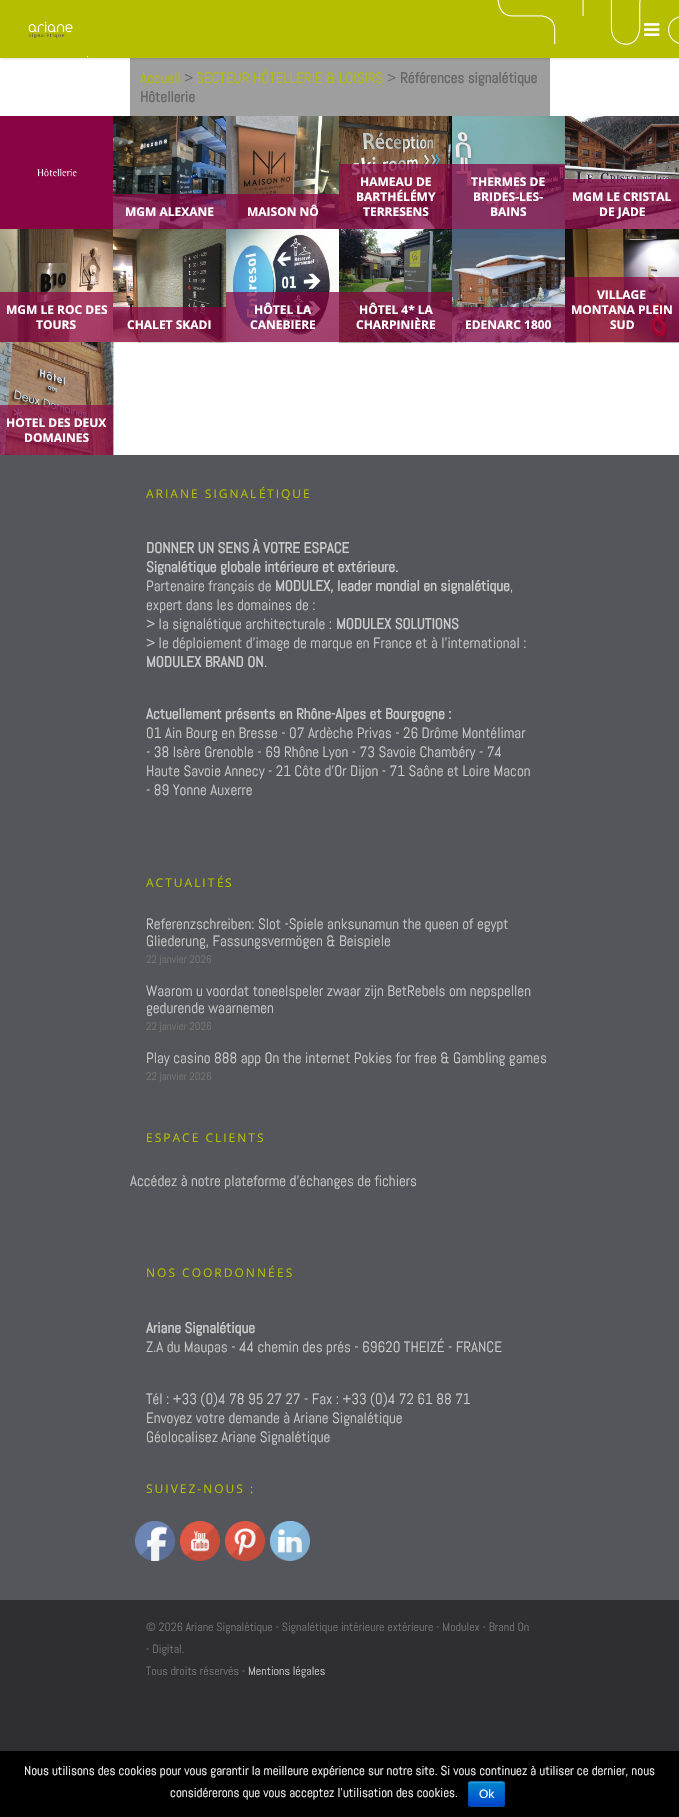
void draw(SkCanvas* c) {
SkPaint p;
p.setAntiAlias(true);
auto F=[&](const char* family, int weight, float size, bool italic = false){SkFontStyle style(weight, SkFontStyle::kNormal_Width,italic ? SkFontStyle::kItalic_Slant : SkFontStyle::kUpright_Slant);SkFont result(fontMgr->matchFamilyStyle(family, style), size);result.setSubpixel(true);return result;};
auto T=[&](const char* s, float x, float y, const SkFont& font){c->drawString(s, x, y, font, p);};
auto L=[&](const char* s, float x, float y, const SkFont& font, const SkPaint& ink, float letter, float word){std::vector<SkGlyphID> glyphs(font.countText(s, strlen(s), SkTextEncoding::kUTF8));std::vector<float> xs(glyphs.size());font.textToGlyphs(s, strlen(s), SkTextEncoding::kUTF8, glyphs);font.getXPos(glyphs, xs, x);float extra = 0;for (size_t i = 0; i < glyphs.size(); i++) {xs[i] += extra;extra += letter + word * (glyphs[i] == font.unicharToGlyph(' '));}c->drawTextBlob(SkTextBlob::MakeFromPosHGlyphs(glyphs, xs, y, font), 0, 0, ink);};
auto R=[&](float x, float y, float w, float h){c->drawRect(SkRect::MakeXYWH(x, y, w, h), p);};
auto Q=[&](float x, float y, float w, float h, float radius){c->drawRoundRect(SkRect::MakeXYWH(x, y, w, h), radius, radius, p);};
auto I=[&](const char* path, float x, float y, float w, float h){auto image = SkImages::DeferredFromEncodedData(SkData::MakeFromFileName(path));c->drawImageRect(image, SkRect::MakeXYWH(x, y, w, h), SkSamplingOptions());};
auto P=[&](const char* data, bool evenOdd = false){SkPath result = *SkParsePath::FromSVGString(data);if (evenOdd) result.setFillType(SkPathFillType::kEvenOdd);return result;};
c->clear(0xff2f2f31);
p.setColor(0xffffffff);
R(0,58,679,397);
p.setColor(0xff9e9e9e);
R(130,58,420,58);
p.setColor(0x38000000);
p.setMaskFilter(SkMaskFilter::MakeBlur(kNormal_SkBlurStyle, 1.5));
c->drawRect(SkRect::MakeXYWH(0,0,679,58),p);
p.setMaskFilter(nullptr);
p.setColor(0xffb5be00);
R(0,0,679,58);
I("1.png",87,0,592,57);
I("2.png",28,21,45,18);
I("3.png",644,23,16,13);
auto f1 = F("Abel",400,15);
T("Accueil",140,83,f1);
p.setColor(0xff676767);
T(">",184,83,f1);
p.setColor(0xffb5be00);
T("SECTEUR HÔTELLERIE & LOISIRS",196,83,f1);
p.setColor(0xff676767);
T(">",387,83,f1);
auto f2 = F("Abel",700,15);
T("Références signalétique",400,83,f2);
T("Hôtellerie",140,102,f2);
I("4.png",0,116,114,114);
I("5.png",113,116,114,114);
p.setColor(0xbd870040);
R(113,194,113,35);
auto f3 = F("Open Sans",700,12);
p.setColor(0xffffffff);
T("MGM ALEXANE",125,216,f3);
I("6.png",226,116,114,114);
p.setColor(0xbd870040);
R(226,194,113,35);
p.setColor(0xffffffff);
T("MAISON NÔ",247,216,f3);
I("7.png",339,116,114,114);
p.setColor(0xba870040);
R(339,164,113,65);
p.setColor(0xffffffff);
T("HAMEAU DE",360,186,f3);
T("BARTHÉLÉMY",356,201,f3);
T("TERRESENS",363,216,f3);
I("8.png",452,116,114,114);
p.setColor(0xba870040);
R(452,164,113,65);
p.setColor(0xffffffff);
T("THERMES DE",471,186,f3);
T("BRIDES-LES-",473,201,f3);
T("BAINS",490,216,f3);
I("9.png",565,116,114,114);
p.setColor(0xba870040);
R(565,179,114,50);
p.setColor(0xffffffff);
T("MGM LE CRISTAL",572,201,f3);
T("DE JADE",599,216,f3);
I("10.png",0,229,114,114);
p.setColor(0xbf8b0846);
R(0,292,113,50);
p.setColor(0xffffffff);
T("MGM LE ROC DES",6,314,f3);
T("TOURS",36,329,f3);
I("11.png",113,229,114,114);
p.setColor(0xb8870040);
R(113,307,113,35);
p.setColor(0xffffffff);
T("CHALET SKADI",127,329,f3);
I("12.png",226,229,114,114);
p.setColor(0xb8870040);
R(226,292,113,50);
p.setColor(0xffffffff);
T("HÔTEL LA",254,314,f3);
T("CANEBIERE",250,329,f3);
I("13.png",339,229,114,114);
p.setColor(0xb8870040);
R(339,292,113,50);
p.setColor(0xffffffff);
T("HÔTEL 4* LA",359,314,f3);
T("CHARPINIÈRE",356,329,f3);
I("14.png",452,229,114,114);
p.setColor(0xb8870040);
R(452,307,113,35);
p.setColor(0xffffffff);
T("EDENARC 1800",465,329,f3);
I("15.png",565,229,114,114);
p.setColor(0xb5870040);
R(565,277,114,65);
p.setColor(0xffffffff);
T("VILLAGE",597,299,f3);
T("MONTANA PLEIN",571,314,f3);
T("SUD",610,329,f3);
I("16.png",0,342,114,113);
p.setColor(0xbf8e0e4a);
R(0,405,113,50);
p.setColor(0xffffffff);
T("HOTEL DES DEUX",6,427,f3);
T("DOMAINES",24,442,f3);
p.setColor(0xff54565b);
R(0,455,679,1145);
auto f4 = F("Open Sans",400,12);
p.setColor(0xffb5be00);
L("ARIANE SIGNAL",146,498,f4,p,2,0);
auto f5 = F("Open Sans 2",400,12);
L("É",259,498,f5,p,2,0);
L("TIQUE",267,498,f4,p,2,0);
p.setColor(0xffcccccc);
T("DONNER UN SENS À VOTRE ESPACE",146,553,f2);
T("Signalétique globale intérieure et extérieure.",146,572,f2);
T("Partenaire français de",146,591,f1);
T("MODULEX, leader mondial en signalétique",275,591,f2);
T(",",510,591,f1);
T("expert dans les domaines de :",146,610,f1);
T("> la signalétique architecturale :",146,629,f1);
T("MODULEX SOLUTIONS",336,629,f2);
T("> le déploiement d’image de marque en France et à l’international :",146,648,f1);
T("MODULEX BRAND ON",146,667,f2);
T(".",264,667,f1);
T("Actuellement présents en Rhône-Alpes et Bourgogne :",146,719,f2);
T("01 Ain Bourg en Bresse - 07 Ardèche Privas - 26 Drôme Montélimar",146,738,f1);
T("- 38 Isère Grenoble - 69 Rhône Lyon - 73 Savoie Chambéry - 74",146,757,f1);
T("Haute Savoie Annecy - 21 Côte d'Or Dijon - 71 Saône et Loire Macon",146,776,f1);
T("- 89 Yonne Auxerre",146,795,f1);
p.setColor(0xffb5be00);
L("ACTUALIT",146,887,f4,p,2,0);
L("É",217,887,f5,p,2,0);
L("S",225,887,f4,p,2,0);
p.setColor(0xffcccccc);
T("Referenzschreiben: Slot -Spiele anksunamun the queen of egypt",146,929,f1);
T("Gliederung, Fassungsvermögen & Beispiele",146,946,f1);
auto f6 = F("Abel",400,11);
p.setColor(0xff777777);
T("22 janvier 2026",146,963,f6);
p.setColor(0xffcccccc);
T("Waarom u voordat toneelspeler zwaar zijn BetRebels om nepspellen",146,996,f1);
T("gedurende waarnemen",146,1013,f1);
p.setColor(0xff777777);
T("22 janvier 2026",146,1030,f6);
p.setColor(0xffcccccc);
T("Play casino 888 app On the internet Pokies for free & Gambling games",146,1063,f1);
p.setColor(0xff777777);
T("22 janvier 2026",146,1080,f6);
p.setColor(0xffb5be00);
L("ESPACE CLIENTS",146,1142,f4,p,2,0);
p.setColor(0xffcccccc);
T("Accédez à notre plateforme d'échanges de fichiers",130,1186,f1);
p.setColor(0xffb5be00);
L("NOS COORDONN",146,1277,f4,p,2,0);
L("É",268,1277,f5,p,2,0);
L("ES",277,1277,f4,p,2,0);
p.setColor(0xffcccccc);
T("Ariane Signalétique",146,1333,f2);
T("Z.A du Maupas - 44 chemin des prés - 69620 THEIZÉ - FRANCE",146,1352,f1);
T("Tél : +33 (0)4 78 95 27 27 - Fax : +33 (0)4 72 61 88 71",146,1404,f1);
T("Envoyez votre demande à Ariane Signalétique",146,1423,f1);
T("Géolocalisez Ariane Signalétique",146,1442,f1);
p.setColor(0xffb5be00);
L("SUIVEZ-NOUS :",146,1493,f4,p,2,0);
I("17.png",135,1521,40,40);
I("18.png",180,1521,40,40);
I("19.png",225,1521,40,40);
I("20.png",270,1521,40,40);
auto f7 = F("Abel",400,12);
p.setColor(0xff777777);
T("© 2026 Ariane Signalétique - Signalétique intérieure extérieure - Modulex - Brand On",146,1631,f7);
T("- Digital.",146,1653,f7);
T("Tous droits réservés -",146,1675,f7);
p.setColor(0xffcccccc);
T("Mentions légales",248,1675,f7);
p.setColor(0xff000000);
R(0,1751,679,66);
auto f8 = F("Abel",400,13);
p.setColor(0xffffffff);
T("Nous utilisons des cookies pour vous garantir la meilleure expérience sur notre site. Si vous continuez à utiliser ce dernier, nous",24,1775,f8);
T("considérerons que vous acceptez l'utilisation des cookies.",170,1797,f8);
p.setColor(0xff006dcc);
Q(468,1781,37,26,3);
c->save();
c->clipPath(P("M471 1781h31c1.5 0 3 1.5 3 3v20c0 1.5-1.5 3-3 3h-31c-1.5 0-3-1.5-3-3v-20c0-1.5 1.5-3 3-3z"),true);
{
const SkColor colors[] = {0xff0088cc,0xff0044cc};
const float stops[] = {0,1};
const SkPoint ends[] = {{487,1782}, {487,1806}};
p.setShader(SkGradientShader::MakeLinear(ends, colors, stops, 2, SkTileMode::kClamp));
p.setAlpha(255);
}
R(468,1782,37,24);
c->restore();
p.setShader(nullptr);
p.setColor(0x33ffffff);
c->drawPath(P("M471 1783h31c1 0 2 1 2 2c0-4.5-3.5-3-7-3h-21c-3.5 0-7-1.5-7 3c0-1 1-2 2-2z"),p);
p.setStroke(true);
p.setStrokeWidth(1);
p.setColor(0x40000000);
c->drawPath(P("M504 1806c-.5 0-1.5 .5-2 .5h-31c-.5 0-1.5-.5-2-.5"),p);
p.setColor(0x1a000000);
c->drawPath(P("M469 1806c0-.5-.5-1.5-.5-2v-20c0-.5 .5-1.5 .5-2c.5 0 1.5-.5 2-.5h31c.5 0 1.5 .5 2 .5c0 .5 .5 1.5 .5 2v20c0 .5-.5 1.5-.5 2"),p);
auto f9 = F("Liberation Sans",400,12);
p.setStroke(false);
p.setColor(0xffffffff);
T("Ok",479,1798,f9);
}
